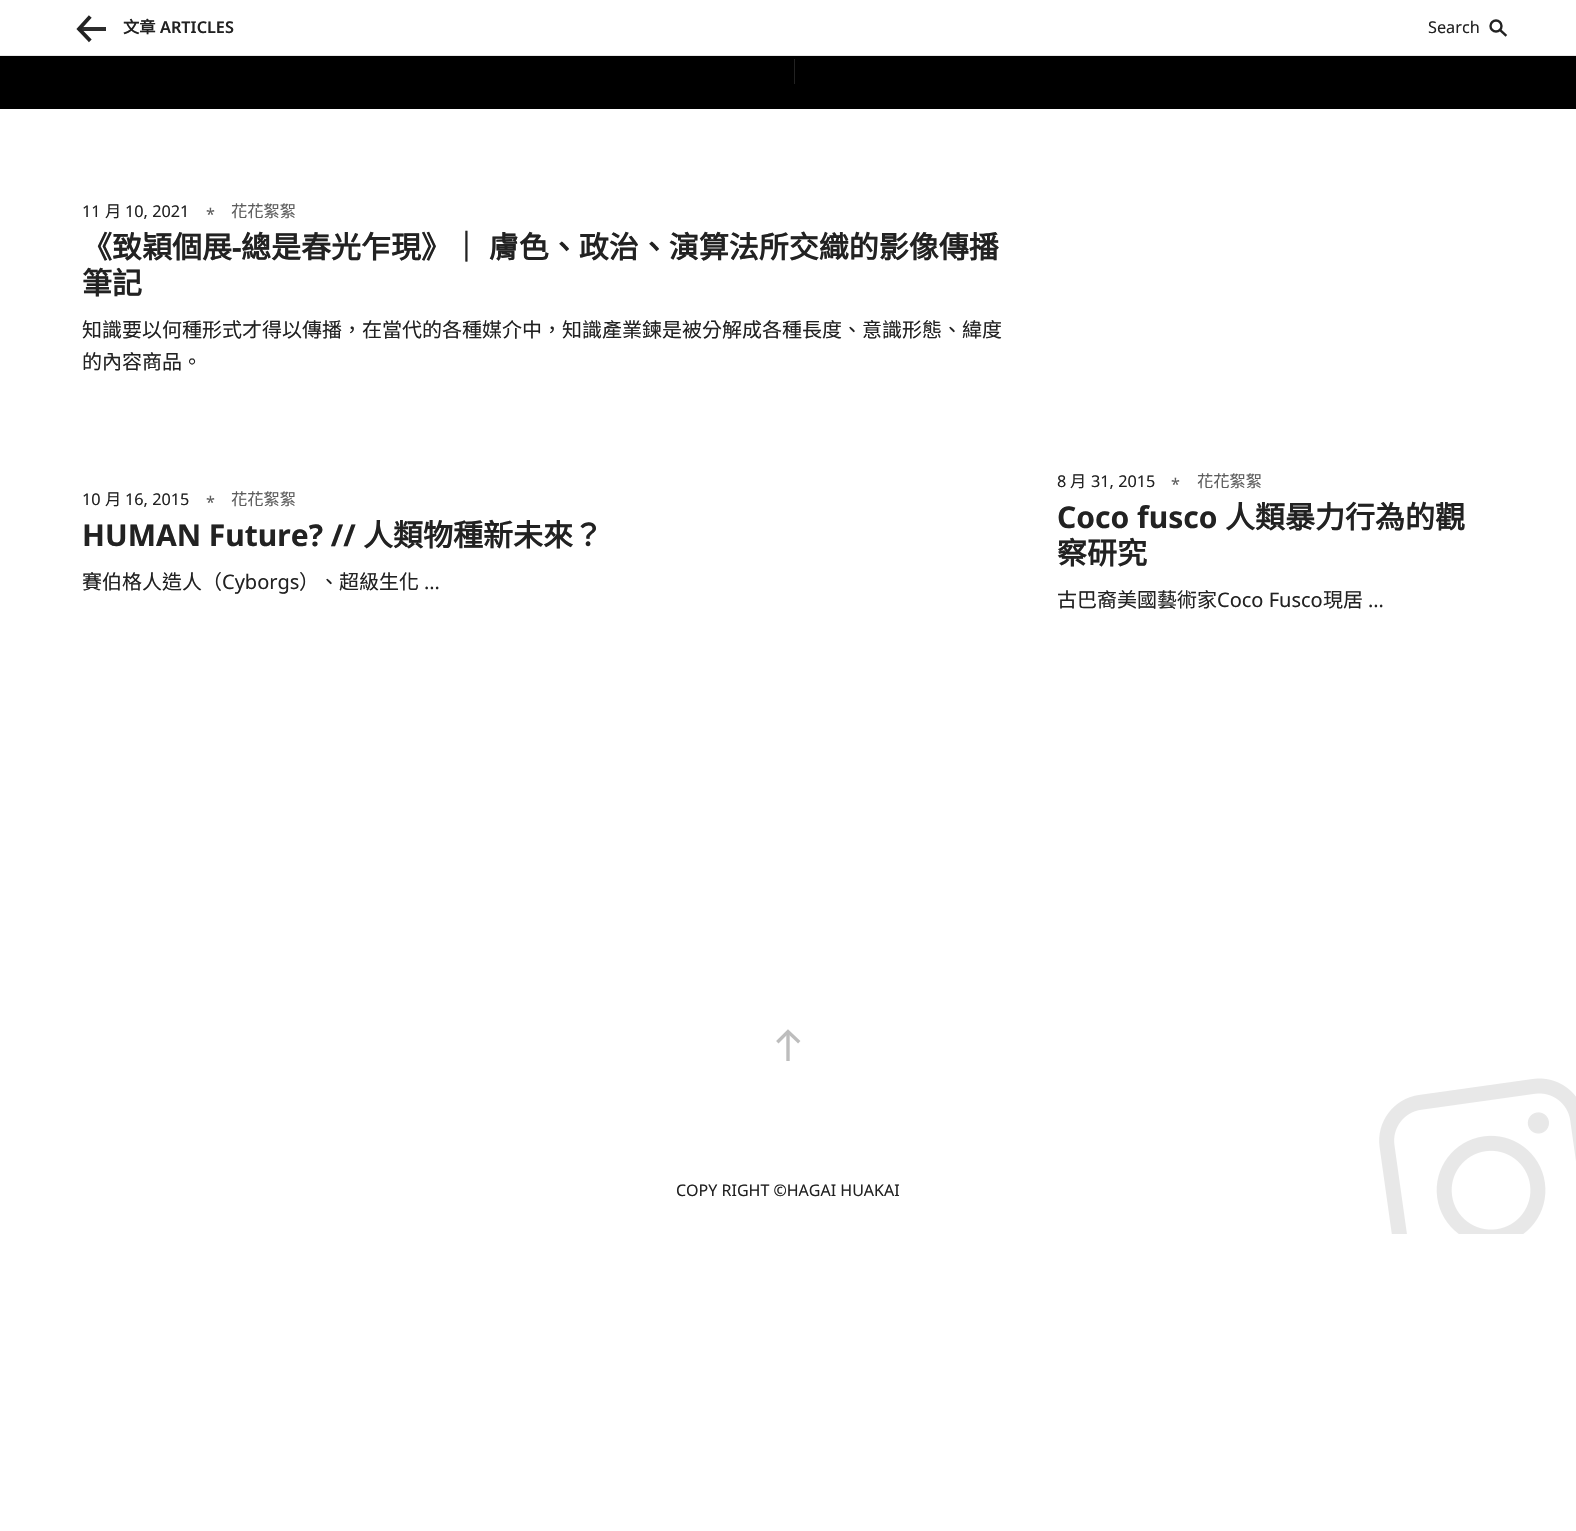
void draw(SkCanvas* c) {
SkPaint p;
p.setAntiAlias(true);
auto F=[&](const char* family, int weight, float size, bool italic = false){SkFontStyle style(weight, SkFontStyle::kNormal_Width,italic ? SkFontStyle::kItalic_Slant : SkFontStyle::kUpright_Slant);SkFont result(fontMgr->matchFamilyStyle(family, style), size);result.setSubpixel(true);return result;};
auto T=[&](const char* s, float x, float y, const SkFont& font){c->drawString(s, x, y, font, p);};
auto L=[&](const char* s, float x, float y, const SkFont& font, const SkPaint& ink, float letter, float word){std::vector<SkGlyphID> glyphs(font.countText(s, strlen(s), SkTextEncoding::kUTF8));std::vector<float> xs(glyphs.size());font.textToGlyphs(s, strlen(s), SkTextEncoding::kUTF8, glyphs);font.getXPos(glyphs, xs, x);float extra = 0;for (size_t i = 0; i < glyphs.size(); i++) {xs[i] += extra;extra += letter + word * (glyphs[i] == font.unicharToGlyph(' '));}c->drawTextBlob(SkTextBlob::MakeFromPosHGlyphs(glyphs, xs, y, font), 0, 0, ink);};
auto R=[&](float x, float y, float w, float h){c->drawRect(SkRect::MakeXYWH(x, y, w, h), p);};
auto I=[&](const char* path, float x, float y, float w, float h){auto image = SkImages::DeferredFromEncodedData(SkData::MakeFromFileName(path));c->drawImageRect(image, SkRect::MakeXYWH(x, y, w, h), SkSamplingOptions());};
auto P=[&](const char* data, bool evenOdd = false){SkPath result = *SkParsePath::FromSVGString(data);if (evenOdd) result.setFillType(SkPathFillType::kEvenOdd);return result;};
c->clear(0xffffffff);
p.setColor(0xffe8e8e8);
R(0,55,1576,1);
p.setColor(0xff2d2d2d);
R(78,27,28,4);
p.setStroke(true);
p.setStrokeWidth(3.8);
p.setStrokeCap(SkPaint::kSquare_Cap);
p.setColor(0xff222222);
c->drawPath(P("M89 39.5l-10-10.5l10-11"),p);
auto f1 = F("Noto Sans CJK TC",700,16.25);
p.setStroke(false);
T("文章",123,33,f1);
auto f2 = F("Noto Sans",600,16.25);
T("ARTICLES",160,33,f2);
auto f3 = F("Noto Sans",400,16.25);
T("Search",1428,33,f3);
p.setStroke(true);
p.setStrokeWidth(2.4);
p.setStrokeCap(SkPaint::kButt_Cap);
c->drawCircle(1496,26,5.5,p);
p.setStrokeCap(SkPaint::kSquare_Cap);
c->drawPath(P("M1500.5 30.5l5 4.5"),p);
p.setStroke(false);
p.setColor(0xff000000);
R(0,56,1576,53);
p.setColor(0xff222222);
R(794,59,1,25);
T("11",82,217,f3);
auto f4 = F("Noto Sans CJK TC",400,16.25);
T("月",105,217,f4);
T("10, 2021",125,217,f3);
p.setColor(0xff5d5d5d);
T("*",206,220,f3);
T("花花絮絮",231,217,f4);
auto f5 = F("Noto Sans CJK TC",700,30);
p.setColor(0xff222222);
T("《致穎個展",82,258,f5);
auto f6 = F("Noto Sans",700,30);
T("-",232,258,f6);
L("總是春光乍現》｜ 膚色、政治、演算法所交織的影像傳播",241,258,f5,p,0,1);
T("筆記",82,294,f5);
auto f7 = F("Noto Sans CJK TC",400,20);
T("知識要以何種形式才得以傳播，在當代的各種媒介中，知識產業鍊是被分解成各種長度、意識形態、緯度",82,337,f7);
T("的內容商品。",82,369,f7);
T("10",82,505,f3);
T("月",105,505,f4);
T("16, 2015",125,505,f3);
p.setColor(0xff5d5d5d);
T("*",206,508,f3);
T("花花絮絮",231,505,f4);
p.setColor(0xff222222);
T("HUMAN Future? //",82,546,f6);
T("人類物種新未來？",363,546,f5);
T("賽伯格人造人（",82,589,f7);
auto f8 = F("Noto Sans",400,20);
T("Cyborgs",222,589,f8);
T("）、超級生化",299,589,f7);
T("…",424,589,f8);
T("8",1057,487,f3);
T("月",1070,487,f4);
T("31, 2015",1091,487,f3);
p.setColor(0xff5d5d5d);
T("*",1171,490,f3);
T("花花絮絮",1197,487,f4);
p.setColor(0xff222222);
T("Coco fusco",1057,528,f6);
T("人類暴力行為的觀",1225,528,f5);
T("察研究",1057,564,f5);
T("古巴裔美國藝術家",1057,607,f7);
T("Coco Fusco",1217,607,f8);
T("現居",1323,607,f7);
T("…",1368,607,f8);
c->save();
c->clipRect(SkRect::MakeXYWH(775,1024,26,37));
p.setStroke(true);
p.setStrokeWidth(3.4);
p.setColor(0xffbdbdbd);
c->drawPath(P("M788 1033v113"),p);
c->restore();
c->drawPath(P("M798 1041l-10-9.5l-9.5 9.5"),p);
auto f9 = F("Noto Sans",400,16);
p.setStroke(false);
p.setColor(0xff222222);
T("COPY RIGHT ©HAGAI HUAKAI",676,1196,f9);
I("1.png",1379,1078,197,156);
}
